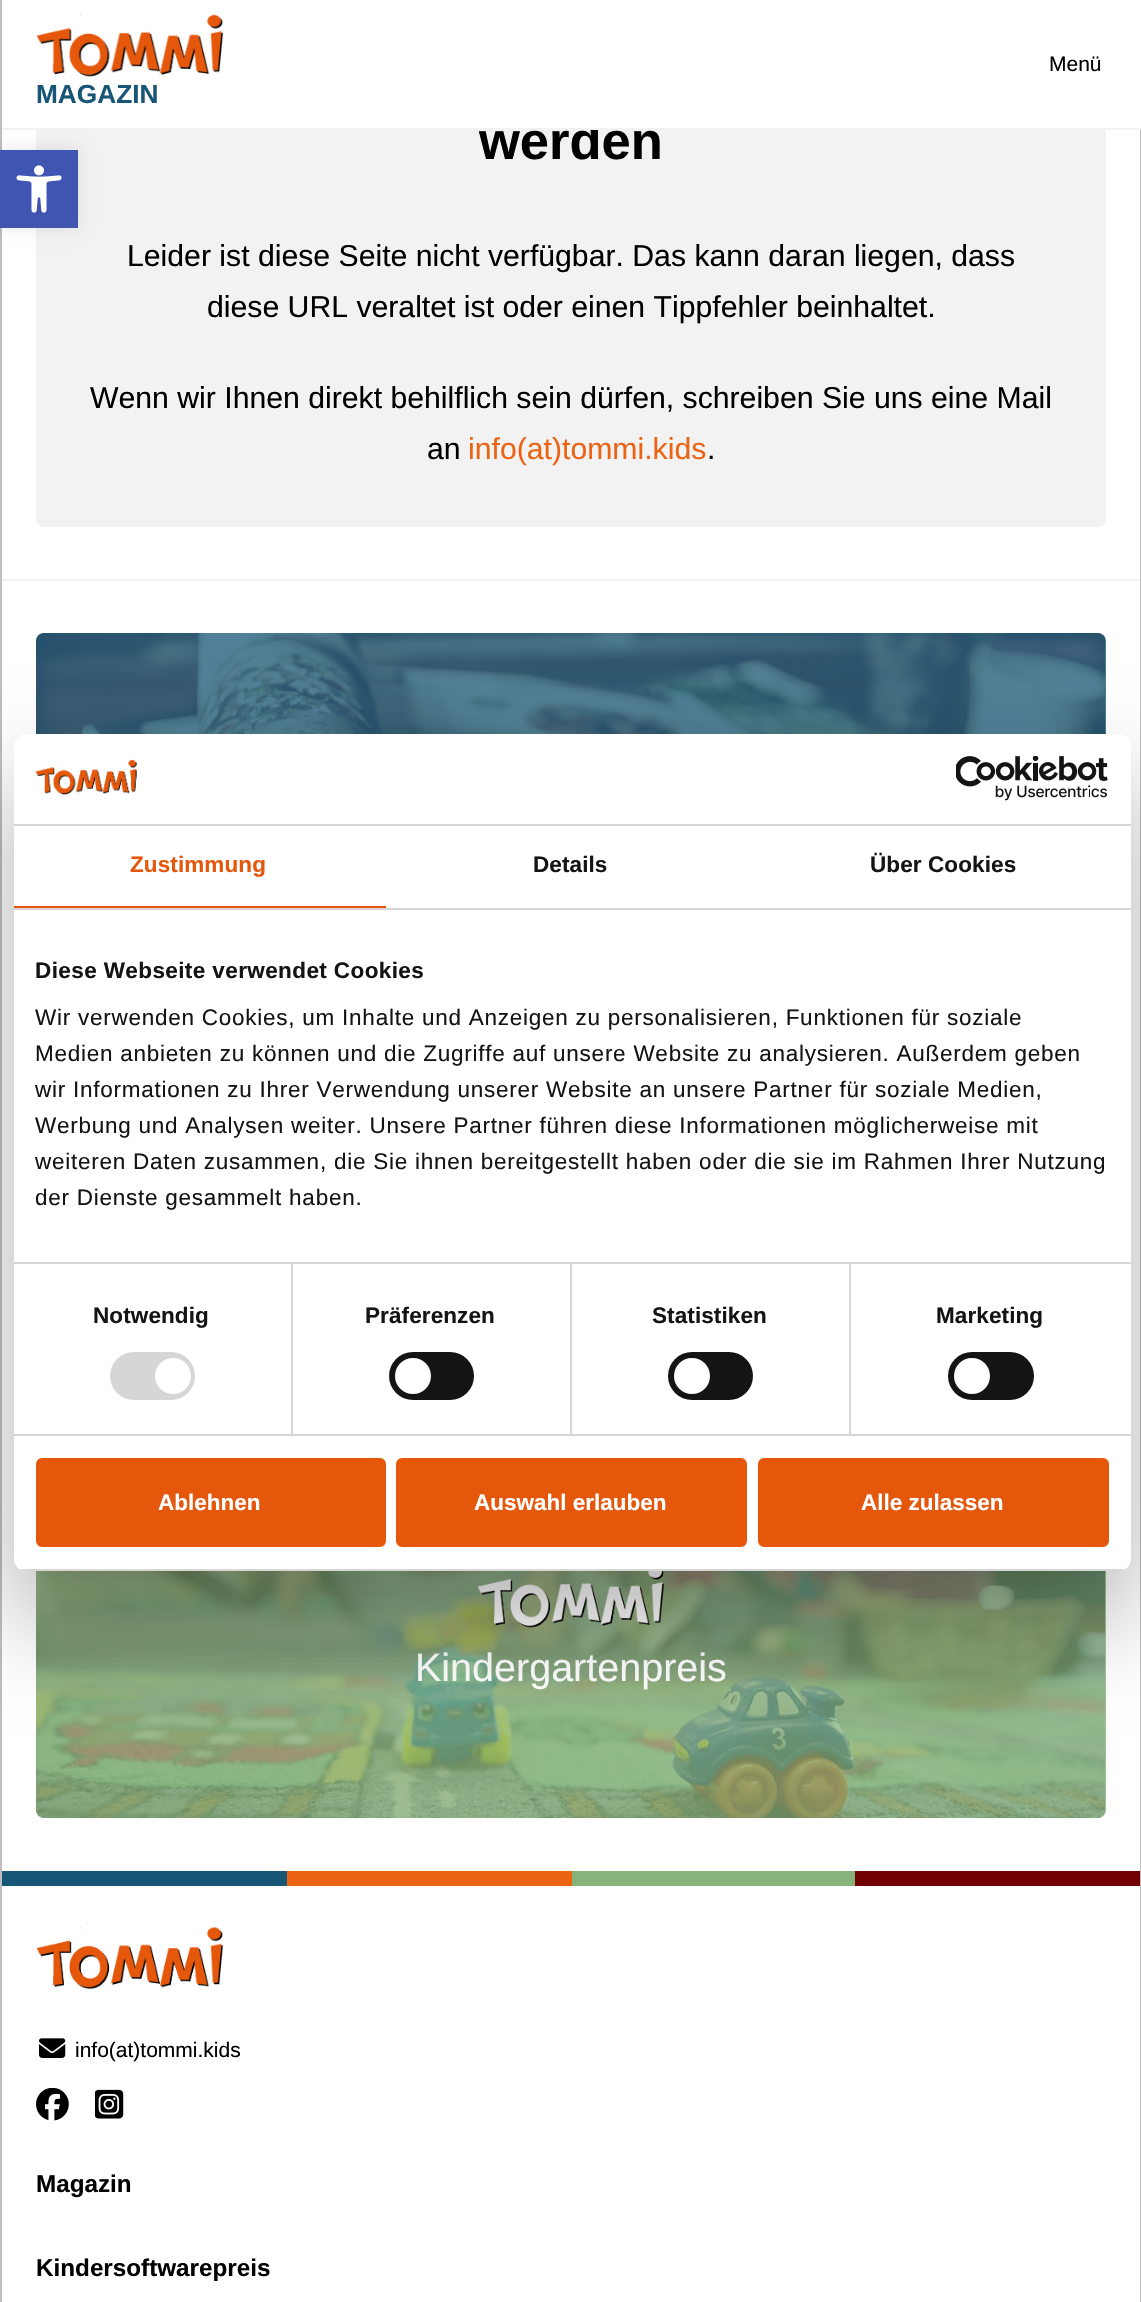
void draw(SkCanvas* c) {
SkPaint p;
p.setAntiAlias(true);
auto F=[&](const char* family, int weight, float size, bool italic = false){SkFontStyle style(weight, SkFontStyle::kNormal_Width,italic ? SkFontStyle::kItalic_Slant : SkFontStyle::kUpright_Slant);SkFont result(fontMgr->matchFamilyStyle(family, style), size);result.setSubpixel(true);return result;};
auto T=[&](const char* s, float x, float y, const SkFont& font){c->drawString(s, x, y, font, p);};
auto L=[&](const char* s, float x, float y, const SkFont& font, const SkPaint& ink, float letter, float word){std::vector<SkGlyphID> glyphs(font.countText(s, strlen(s), SkTextEncoding::kUTF8));std::vector<float> xs(glyphs.size());font.textToGlyphs(s, strlen(s), SkTextEncoding::kUTF8, glyphs);font.getXPos(glyphs, xs, x);float extra = 0;for (size_t i = 0; i < glyphs.size(); i++) {xs[i] += extra;extra += letter + word * (glyphs[i] == font.unicharToGlyph(' '));}c->drawTextBlob(SkTextBlob::MakeFromPosHGlyphs(glyphs, xs, y, font), 0, 0, ink);};
auto R=[&](float x, float y, float w, float h){c->drawRect(SkRect::MakeXYWH(x, y, w, h), p);};
auto Q=[&](float x, float y, float w, float h, float radius){c->drawRoundRect(SkRect::MakeXYWH(x, y, w, h), radius, radius, p);};
auto I=[&](const char* path, float x, float y, float w, float h){auto image = SkImages::DeferredFromEncodedData(SkData::MakeFromFileName(path));c->drawImageRect(image, SkRect::MakeXYWH(x, y, w, h), SkSamplingOptions());};
auto P=[&](const char* data, bool evenOdd = false){SkPath result = *SkParsePath::FromSVGString(data);if (evenOdd) result.setFillType(SkPathFillType::kEvenOdd);return result;};
c->clear(0xffffffff);
p.setColor(0xffbebebe);
R(1140,130,1,2172);
R(0,0,2,2302);
p.setColor(0xfff2f2f2);
Q(36,-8,1070,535,8);
auto f1 = F("Liberation Sans",700,52.5);
p.setColor(0xff000000);
T("werden",479,159,f1);
p.setColor(0x1a000000);
p.setMaskFilter(SkMaskFilter::MakeBlur(kNormal_SkBlurStyle, 7.5));
c->drawRect(SkRect::MakeXYWH(0,150,78,78),p);
p.setMaskFilter(nullptr);
p.setColor(0xffffffff);
R(36,0,1070,128);
auto f2 = F("Liberation Sans",400,21);
p.setColor(0xff000000);
T("Menü",1049,71,f2);
I("1.png",36,14,188,63);
auto f3 = F("Liberation Sans",700,26.25);
p.setColor(0xff175676);
T("MAGAZIN",36,103,f3);
p.setColor(0xfff2f2f2);
R(2,128,1139,2);
R(2,579,1138,2);
auto f4 = F("Liberation Sans",400,30.2);
p.setColor(0xff000000);
T("Leider ist diese Seite nicht verfügbar. Das kann daran liegen, dass",127,266,f4);
T("diese URL veraltet ist oder einen Tippfehler beinhaltet.",207,317,f4);
T("Wenn wir Ihnen direkt behilflich sein dürfen, schreiben Sie uns eine Mail",90,408,f4);
T("an",427,459,f4);
p.setColor(0xffec6313);
T("info(at)tommi.kids",468,459,f4);
p.setColor(0xff000000);
T(".",707,459,f4);
I("2.png",36,633,1070,101);
p.setColor(0xbf175676);
Q(36,633,1070,375,8);
I("3.png",36,1571,1070,247);
p.setColor(0xbf87b37a);
Q(36,1443,1070,375,8);
I("4.png",477,1571,188,57);
auto f5 = F("Liberation Sans",400,39.5);
p.setColor(0xffffffff);
T("Kindergartenpreis",415,1681,f5);
p.setColor(0xff87b37a);
R(572,1871,283,15);
p.setColor(0xff710000);
R(855,1871,285,15);
p.setColor(0xffec6313);
R(287,1871,285,15);
p.setColor(0xff175676);
R(2,1871,285,15);
I("5.png",36,1927,188,62);
I("6.png",39,2038,27,20);
p.setColor(0xff000000);
T("info(at)tommi.kids",75,2057,f2);
I("7.png",36,2088,33,33);
I("8.png",95,2089,29,30);
auto f6 = F("Liberation Sans",700,24.25);
T("Magazin",36,2192,f6);
T("Kindersoftwarepreis",36,2276,f6);
p.setColor(0xff4054b2);
R(0,150,78,78);
I("9.png",16,165,46,48);
p.setColor(0x4d000000);
p.setMaskFilter(SkMaskFilter::MakeBlur(kNormal_SkBlurStyle, 51));
c->drawRoundRect(SkRect::MakeXYWH(14,782,1117,837),12,12,p);
p.setMaskFilter(nullptr);
p.setColor(0xffffffff);
Q(14,734,1117,837,12);
p.setColor(0xffd6d6d6);
R(14,824,1117,2);
I("10.png",35,759,103,36);
I("11.png",956,756,152,45);
R(14,908,1117,2);
p.setColor(0xffe5570a);
R(14,906,372,2);
auto f7 = F("Liberation Sans",700,22.5);
L("Zustimmung",130,872,f7,p,.1,0);
p.setColor(0xff141414);
L("Details",533,872,f7,p,.1,0);
L("Über Cookies",870,872,f7,p,.1,0);
p.setColor(0xffd6d6d6);
R(291,1263,2,171);
R(570,1263,2,171);
R(849,1263,2,171);
R(14,1262,1117,2);
p.setColor(0xff141414);
L("Diese Webseite verwendet Cookies",35,978,f7,p,.4,0);
auto f8 = F("Liberation Sans",400,22.5);
L("Wir verwenden Cookies, um Inhalte und Anzeigen zu personalisieren, Funktionen für soziale",35,1025,f8,p,.75,0);
L("Medien anbieten zu können und die Zugriffe auf unsere Website zu analysieren. Außerdem geben",35,1061,f8,p,.75,0);
L("wir Informationen zu Ihrer Verwendung unserer Website an unsere Partner für soziale Medien,",35,1097,f8,p,.75,0);
L("Werbung und Analysen weiter. Unsere Partner führen diese Informationen möglicherweise mit",35,1133,f8,p,.75,0);
L("weiteren Daten zusammen, die Sie ihnen bereitgestellt haben oder die sie im Rahmen Ihrer Nutzung",35,1169,f8,p,.75,0);
L("der Dienste gesammelt haben.",35,1205,f8,p,.75,0);
p.setColor(0xffd6d6d6);
R(14,1434,1117,2);
p.setColor(0xff141414);
L("Notwendig",93,1323,f7,p,.1,0);
p.setColor(0xffd6d6d6);
Q(110,1352,85,48,24);
p.setColor(0xffffffff);
c->drawCircle(173,1376,18,p);
p.setColor(0xff141414);
L("Präferenzen",365,1323,f7,p,.1,0);
Q(389,1352,85,48,24);
p.setColor(0xffffffff);
c->drawCircle(413,1376,18,p);
p.setColor(0xff141414);
L("Statistiken",652,1323,f7,p,.1,0);
Q(668,1352,85,48,24);
p.setColor(0xffffffff);
c->drawCircle(692,1376,18,p);
p.setColor(0xff141414);
L("Marketing",936,1323,f7,p,.1,0);
Q(948,1352,86,48,24);
p.setColor(0xffffffff);
c->drawCircle(972,1376,18,p);
c->save();
c->clipPath(P("M26 734h1093c6.5 0 12 5.5 12 12v813c0 6.5-5.5 12-12 12h-1093c-6.5 0-12-5.5-12-12v-813c0-6.5 5.5-12 12-12z"),true);
p.setColor(0xffd6d6d6);
R(14,1569,1117,2);
c->restore();
p.setColor(0xffe5570a);
c->drawRoundRect(SkRect::MakeXYWH(37.5,1459.5,347,86),4.5,4.5,p);
p.setStroke(true);
p.setStrokeWidth(3);
c->drawRoundRect(SkRect::MakeXYWH(37.5,1459.5,347,86),4.5,4.5,p);
p.setStroke(false);
p.setColor(0xffffffff);
T("Ablehnen",158,1510,f7);
p.setColor(0xffe5570a);
c->drawRoundRect(SkRect::MakeXYWH(397.5,1459.5,348,86),4.5,4.5,p);
p.setStroke(true);
c->drawRoundRect(SkRect::MakeXYWH(397.5,1459.5,348,86),4.5,4.5,p);
p.setStroke(false);
p.setColor(0xffffffff);
T("Auswahl erlauben",474,1510,f7);
p.setColor(0xffe5570a);
c->drawRoundRect(SkRect::MakeXYWH(759.5,1459.5,348,86),4.5,4.5,p);
p.setStroke(true);
c->drawRoundRect(SkRect::MakeXYWH(759.5,1459.5,348,86),4.5,4.5,p);
p.setStroke(false);
p.setColor(0xffffffff);
T("Alle zulassen",861,1510,f7);
}
